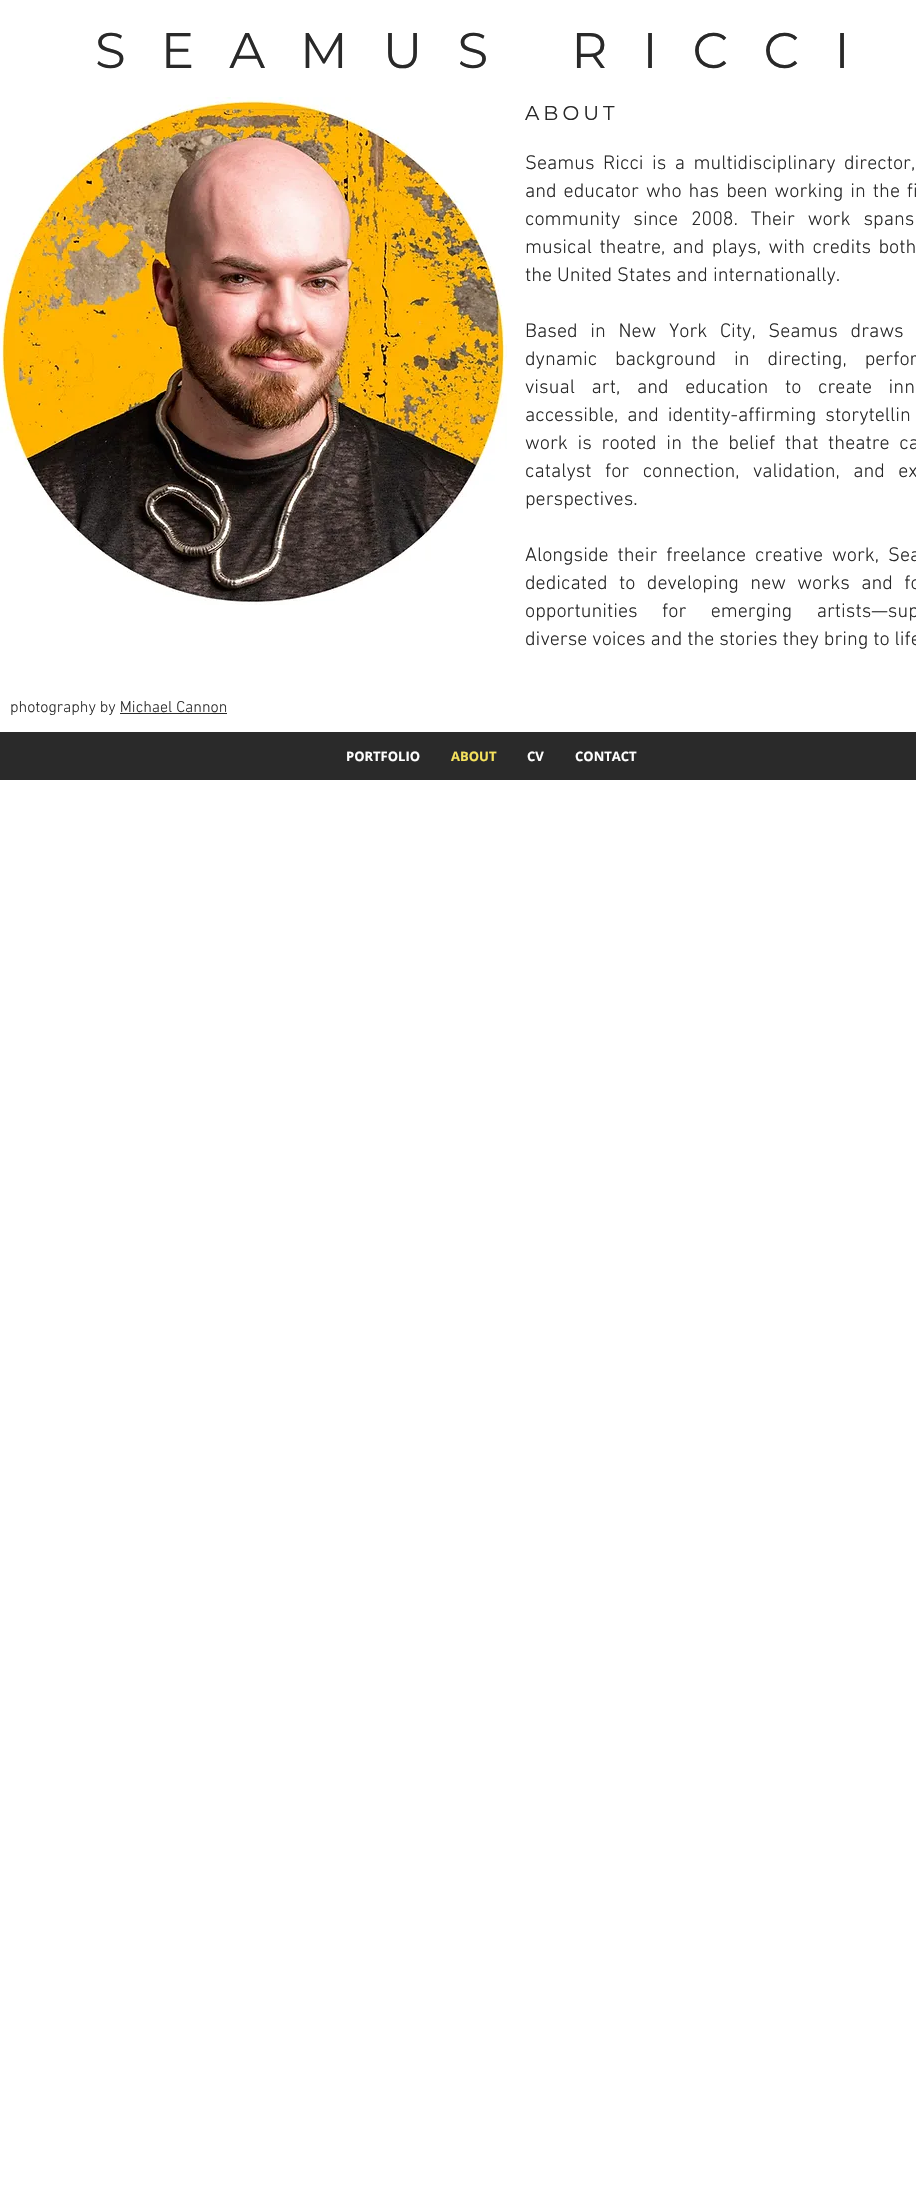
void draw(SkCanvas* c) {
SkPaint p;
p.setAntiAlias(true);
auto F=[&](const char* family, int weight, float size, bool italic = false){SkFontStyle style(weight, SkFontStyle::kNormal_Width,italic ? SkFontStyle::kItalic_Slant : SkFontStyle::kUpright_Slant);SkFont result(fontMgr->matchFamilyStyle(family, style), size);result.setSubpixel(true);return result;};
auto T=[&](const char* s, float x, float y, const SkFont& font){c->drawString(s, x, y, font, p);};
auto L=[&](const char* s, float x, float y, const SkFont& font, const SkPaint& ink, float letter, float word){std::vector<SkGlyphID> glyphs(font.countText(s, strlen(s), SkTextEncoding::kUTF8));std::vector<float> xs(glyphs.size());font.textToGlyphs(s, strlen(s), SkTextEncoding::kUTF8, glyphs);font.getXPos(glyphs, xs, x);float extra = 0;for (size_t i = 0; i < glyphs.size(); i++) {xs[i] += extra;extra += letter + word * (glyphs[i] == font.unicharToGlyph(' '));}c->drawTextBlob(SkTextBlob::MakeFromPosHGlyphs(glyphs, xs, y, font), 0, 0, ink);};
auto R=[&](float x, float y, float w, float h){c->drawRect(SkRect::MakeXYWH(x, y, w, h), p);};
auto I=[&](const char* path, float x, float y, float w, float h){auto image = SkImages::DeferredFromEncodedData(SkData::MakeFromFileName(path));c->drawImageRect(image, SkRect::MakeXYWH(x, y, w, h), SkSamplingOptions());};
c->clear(0xffffffff);
auto f1 = F("Montserrat",400,50);
p.setColor(0xff292929);
L("SEAMUS RICCI",95,68,f1,p,35,0);
I("1.png",0,97,507,508);
auto f2 = F("Montserrat",400,20);
L("ABOUT",525,120,f2,p,4,0);
auto f3 = F("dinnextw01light",300,20);
L("Seamus Ricci is a multidisciplinary director,",525,169,f3,p,0,3.5);
L("and educator who has been working in the fi",525,197,f3,p,0,2);
L("community since 2008. Their work spans",525,225,f3,p,0,8);
L("musical theatre, and plays, with credits both",525,253,f3,p,0,2.5);
T("the United States and internationally.",525,281,f3);
L("Based in New York City, Seamus draws",525,337,f3,p,0,7.75);
L("dynamic background in directing, perfor",525,365,f3,p,0,13);
L("visual art, and education to create inn",525,393,f3,p,0,11.75);
L("accessible, and identity-affirming storytellin",525,421,f3,p,0,4);
L("work is rooted in the belief that theatre ca",525,449,f3,p,0,4.75);
L("catalyst for connection, validation, and ex",525,477,f3,p,0,8.5);
T("perspectives.",525,505,f3);
L("Alongside their freelance creative work, Sea",525,561,f3,p,0,4);
L("dedicated to developing new works and fo",525,589,f3,p,0,6.5);
L("opportunities for emerging artists—sup",525,617,f3,p,0,19.5);
T("diverse voices and the stories they bring to life",525,645,f3);
auto f4 = F("dinnextw01light",300,16);
T("photography by Michael Cannon",10,712,f4);
p.setColor(0xff2a2a2a);
R(120,713,107,1);
R(0,732,916,48);
auto f5 = F("Open Sans",700,13);
p.setColor(0xffffffff);
T("PORTFOLIO",346,761,f5);
p.setColor(0xfff5e25d);
T("ABOUT",451,761,f5);
p.setColor(0xffffffff);
T("CV",527,761,f5);
T("CONTACT",575,761,f5);
}
